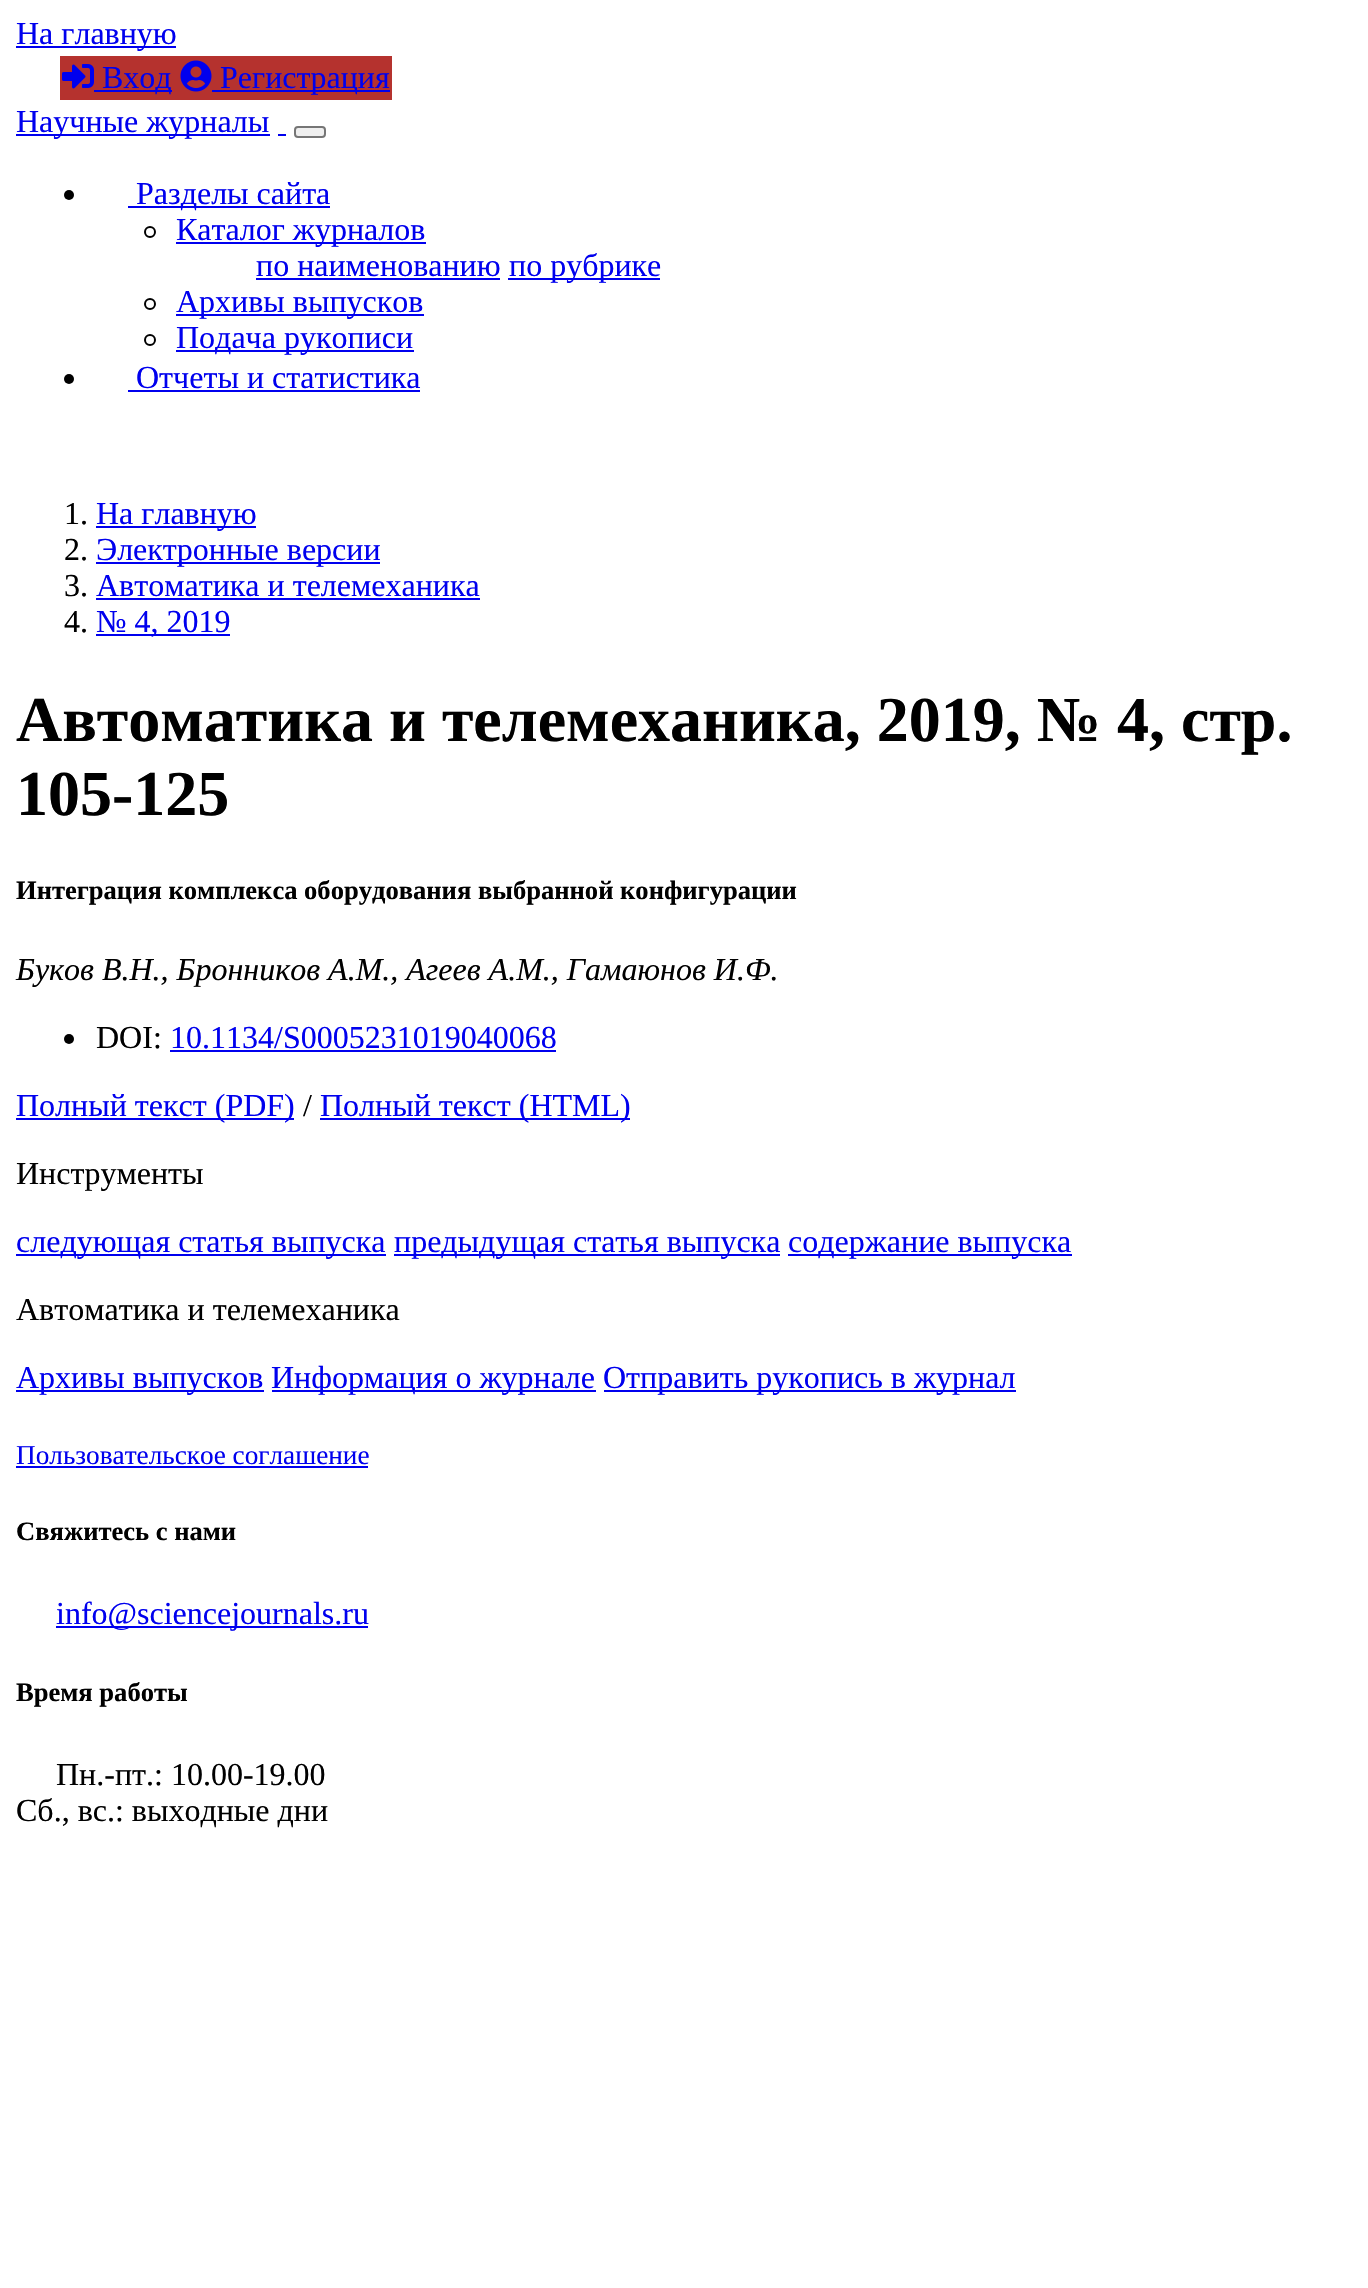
void draw(SkCanvas* c) {
SkPaint p;
p.setAntiAlias(true);
auto F=[&](const char* family, int weight, float size, bool italic = false){SkFontStyle style(weight, SkFontStyle::kNormal_Width,italic ? SkFontStyle::kItalic_Slant : SkFontStyle::kUpright_Slant);SkFont result(fontMgr->matchFamilyStyle(family, style), size);result.setSubpixel(true);return result;};
auto T=[&](const char* s, float x, float y, const SkFont& font){c->drawString(s, x, y, font, p);};
auto R=[&](float x, float y, float w, float h){c->drawRect(SkRect::MakeXYWH(x, y, w, h), p);};
auto I=[&](const char* path, float x, float y, float w, float h){auto image = SkImages::DeferredFromEncodedData(SkData::MakeFromFileName(path));c->drawImageRect(image, SkRect::MakeXYWH(x, y, w, h), SkSamplingOptions());};
c->clear(0xffffffff);
p.setColor(0xff0000ee);
R(16,46,160,2);
auto f1 = F("Liberation Serif",400,32);
T("На главную",16,44,f1);
p.setColor(0xffb5322e);
R(60,56,332,44);
I("1.png",62,64,32,25);
p.setColor(0xff0000ee);
R(94,90,78,2);
T("Вход",102,88,f1);
I("2.png",180,60,32,32);
R(212,90,178,2);
T("Регистрация",220,88,f1);
R(16,134,254,2);
T("Научные журналы",16,132,f1);
R(278,134,8,2);
p.setColor(0xffefefef);
c->drawRoundRect(SkRect::MakeXYWH(295,127,30,10),3,3,p);
p.setStroke(true);
p.setStrokeWidth(2);
p.setColor(0xff767676);
c->drawRoundRect(SkRect::MakeXYWH(295,127,30,10),3,3,p);
p.setStroke(false);
p.setColor(0xff000000);
c->drawCircle(69,195,5,p);
p.setColor(0xff0000ee);
R(128,206,202,2);
T("Разделы сайта",136,204,f1);
p.setStroke(true);
p.setColor(0xff000000);
c->drawCircle(150,232,5,p);
p.setStroke(false);
p.setColor(0xff0000ee);
R(176,242,250,2);
T("Каталог журналов",176,240,f1);
T("по наименованию",256,276,f1);
R(256,278,244,2);
R(508,278,152,2);
T("по рубрике",509,276,f1);
p.setStroke(true);
p.setColor(0xff000000);
c->drawCircle(150,304,5,p);
p.setStroke(false);
p.setColor(0xff0000ee);
R(176,314,248,2);
T("Архивы выпусков",176,312,f1);
p.setStroke(true);
p.setColor(0xff000000);
c->drawCircle(150,340,5,p);
p.setStroke(false);
p.setColor(0xff0000ee);
R(176,350,238,2);
T("Подача рукописи",176,348,f1);
p.setColor(0xff000000);
c->drawCircle(69,379,5,p);
p.setColor(0xff0000ee);
T("Отчеты и статистика",136,388,f1);
R(128,390,292,2);
p.setColor(0xff000000);
T("1.",64,524,f1);
p.setColor(0xff0000ee);
R(96,526,160,2);
T("На главную",96,524,f1);
p.setColor(0xff000000);
T("2.",64,560,f1);
p.setColor(0xff0000ee);
R(96,562,284,2);
T("Электронные версии",96,560,f1);
p.setColor(0xff000000);
T("3.",64,596,f1);
p.setColor(0xff0000ee);
T("Автоматика и телемеханика",96,596,f1);
R(96,598,384,2);
p.setColor(0xff000000);
T("4.",64,632,f1);
p.setColor(0xff0000ee);
R(96,634,134,2);
T("№ 4, 2019",96,632,f1);
auto f2 = F("Liberation Serif",700,64);
p.setColor(0xff000000);
T("Автоматика и телемеханика, 2019, № 4, стр.",16,741,f2);
T("105-125",16,815,f2);
auto f3 = F("Liberation Serif",700,26.55);
T("Интеграция комплекса оборудования выбранной конфигурации",16,899,f3);
auto f4 = F("Liberation Serif",400,32,true);
T("Буков В.Н., Бронников А.М., Агеев А.М., Гамаюнов И.Ф.",16,980,f4);
c->drawCircle(69,1039,5,p);
T("DOI:",96,1048,f1);
p.setColor(0xff0000ee);
T("10.1134/S0005231019040068",170,1048,f1);
R(170,1050,386,2);
R(16,1118,278,2);
T("Полный текст (PDF)",16,1116,f1);
p.setColor(0xff000000);
T("/",303,1116,f1);
p.setColor(0xff0000ee);
R(320,1118,310,2);
T("Полный текст (HTML)",320,1116,f1);
p.setColor(0xff000000);
T("Инструменты",16,1184,f1);
p.setColor(0xff0000ee);
R(16,1254,370,2);
T("следующая статья выпуска",16,1252,f1);
R(394,1254,386,2);
T("предыдущая статья выпуска",394,1252,f1);
R(788,1254,284,2);
T("содержание выпуска",788,1252,f1);
p.setColor(0xff000000);
T("Автоматика и телемеханика",16,1320,f1);
p.setColor(0xff0000ee);
R(16,1390,248,2);
T("Архивы выпусков",16,1388,f1);
R(272,1390,324,2);
T("Информация о журнале",271,1388,f1);
R(604,1390,412,2);
T("Отправить рукопись в журнал",603,1388,f1);
auto f5 = F("Liberation Serif",400,27.25);
T("Пользовательское соглашение",16,1464,f5);
R(16,1466,352,2);
p.setColor(0xff000000);
T("Свяжитесь с нами",16,1540,f3);
p.setColor(0xff0000ee);
R(56,1626,312,2);
T("info@sciencejournals.ru",56,1624,f1);
p.setColor(0xff000000);
T("Время работы",16,1701,f3);
T("Пн.-пт.: 10.00-19.00",56,1785,f1);
T("Сб., вс.: выходные дни",16,1821,f1);
}
